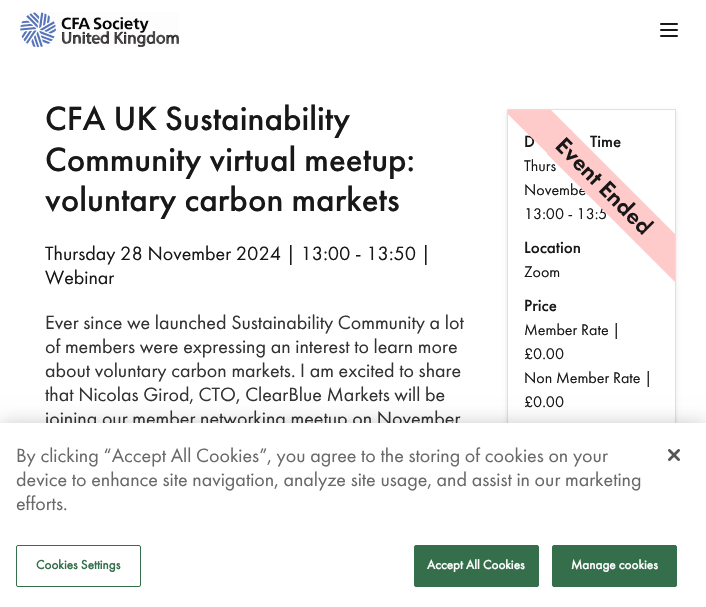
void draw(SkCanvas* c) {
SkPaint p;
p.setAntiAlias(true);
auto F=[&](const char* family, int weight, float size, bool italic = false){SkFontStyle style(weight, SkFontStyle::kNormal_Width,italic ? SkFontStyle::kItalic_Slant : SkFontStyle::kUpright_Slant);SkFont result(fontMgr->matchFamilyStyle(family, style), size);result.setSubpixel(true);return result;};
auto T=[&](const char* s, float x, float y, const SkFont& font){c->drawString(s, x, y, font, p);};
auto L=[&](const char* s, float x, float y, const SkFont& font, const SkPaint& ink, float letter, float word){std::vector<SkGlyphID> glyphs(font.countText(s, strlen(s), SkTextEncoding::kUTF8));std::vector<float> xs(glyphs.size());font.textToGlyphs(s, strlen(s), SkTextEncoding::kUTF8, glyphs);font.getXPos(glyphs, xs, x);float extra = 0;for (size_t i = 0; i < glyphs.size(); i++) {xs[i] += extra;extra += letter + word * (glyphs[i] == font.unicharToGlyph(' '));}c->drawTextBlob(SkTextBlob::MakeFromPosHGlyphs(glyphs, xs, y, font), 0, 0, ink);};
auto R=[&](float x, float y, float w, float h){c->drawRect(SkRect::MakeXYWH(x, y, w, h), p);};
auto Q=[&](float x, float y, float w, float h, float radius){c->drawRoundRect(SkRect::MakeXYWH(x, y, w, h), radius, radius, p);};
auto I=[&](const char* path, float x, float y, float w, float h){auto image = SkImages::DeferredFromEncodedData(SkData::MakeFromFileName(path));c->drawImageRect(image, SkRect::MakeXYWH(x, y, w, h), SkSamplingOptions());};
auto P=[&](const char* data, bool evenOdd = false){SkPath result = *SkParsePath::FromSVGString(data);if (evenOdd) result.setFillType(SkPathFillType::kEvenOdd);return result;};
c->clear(0xffffffff);
I("1.png",20,12,159,35);
p.setColor(0xff191818);
Q(660,23,18,2,1);
Q(660,29,18,2,1);
Q(660,35,18,2,1);
auto f1 = F("Futura PT",500,35);
T("CFA UK Sustainability",45,130,f1);
T("Community virtual meetup:",45,171,f1);
T("voluntary carbon markets",45,211,f1);
auto f2 = F("Futura PT",400,20);
T("Thursday 28 November 2024 | 13:00 - 13:50 |",45,260,f2);
T("Webinar",45,284,f2);
p.setColor(0xff333333);
T("Ever since we launched Sustainability Community a lot",45,329,f2);
T("of members were expressing an interest to learn more",45,353,f2);
T("about voluntary carbon markets. I am excited to share",45,377,f2);
T("that Nicolas Girod, CTO, ClearBlue Markets will be",45,401,f2);
T("joining our member networking meetup on November",45,425,f2);
c->save();
c->clipPath(P("M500 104h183v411h-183zm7 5h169v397h-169z",true),true);
p.setColor(0x1a000000);
p.setMaskFilter(SkMaskFilter::MakeBlur(kNormal_SkBlurStyle, 2));
c->drawRect(SkRect::MakeXYWH(507,111,169,397),p);
p.setMaskFilter(nullptr);
c->restore();
p.setStroke(true);
p.setStrokeWidth(1);
p.setColor(0xffe0e0e0);
c->drawRect(SkRect::MakeXYWH(507.5,109.5,168,396),p);
auto f3 = F("Futura PT",500,17);
p.setStroke(false);
p.setColor(0xff191818);
T("D",524,147,f3);
T("Time",590,147,f3);
auto f4 = F("Futura PT",400,16);
T("Thurs",524,171,f4);
T("Novembe",524,195,f4);
T("13:00 - 13:5",524,219,f4);
T("Location",524,253,f3);
p.setColor(0xffffcaca);
c->drawPath(P("M571 130l89 89l-24 24l-89-89z"),p);
auto f5 = F("Futura PT",600,24);
p.setColor(0xff191818);
c->save();
c->rotate(45,554,147);
T("Event Ended",554,147,f5);
c->restore();
c->save();
c->clipRect(SkRect::MakeXYWH(508,110,167,395));
p.setColor(0xffffcaca);
c->drawPath(P("M456 15l116 116l-24 23l-116-115z"),p);
c->drawPath(P("M659 218l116 116l-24 24l-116-116z"),p);
c->restore();
p.setColor(0xff191818);
T("Zoom",524,277,f4);
T("Price",524,311,f3);
T("Member Rate |",524,335,f4);
T("£0.00",524,359,f4);
T("Non Member Rate |",524,383,f4);
T("£0.00",524,407,f4);
p.setColor(0x33000000);
p.setMaskFilter(SkMaskFilter::MakeBlur(kNormal_SkBlurStyle, 9));
c->drawRect(SkRect::MakeXYWH(0,423,706,184),p);
p.setMaskFilter(nullptr);
p.setColor(0xffffffff);
R(0,423,706,184);
p.setColor(0xff696969);
T("By clicking “Accept All Cookies”, you agree to the storing of cookies on your",16,462,f2);
T("device to enhance site navigation, analyze site usage, and assist in our marketing",16,486,f2);
T("efforts.",16,510,f2);
p.setStroke(true);
p.setColor(0xff346e4a);
c->drawRoundRect(SkRect::MakeXYWH(16.5,545.5,124,41),1.5,1.5,p);
auto f6 = F("Futura PT",700,13);
p.setStroke(false);
L("Cookies Settings",36,569,f6,p,.1,0);
c->drawRoundRect(SkRect::MakeXYWH(414.5,545.5,124,41),1.5,1.5,p);
p.setStroke(true);
c->drawRoundRect(SkRect::MakeXYWH(414.5,545.5,124,41),1.5,1.5,p);
p.setStroke(false);
p.setColor(0xffffffff);
L("Accept All Cookies",427,569,f6,p,.1,0);
p.setColor(0xff346e4a);
c->drawRoundRect(SkRect::MakeXYWH(552.5,545.5,124,41),1.5,1.5,p);
p.setStroke(true);
c->drawRoundRect(SkRect::MakeXYWH(552.5,545.5,124,41),1.5,1.5,p);
p.setStroke(false);
p.setColor(0xffffffff);
L("Manage cookies",571,569,f6,p,.1,0);
I("2.png",668,449,12,12);
}
